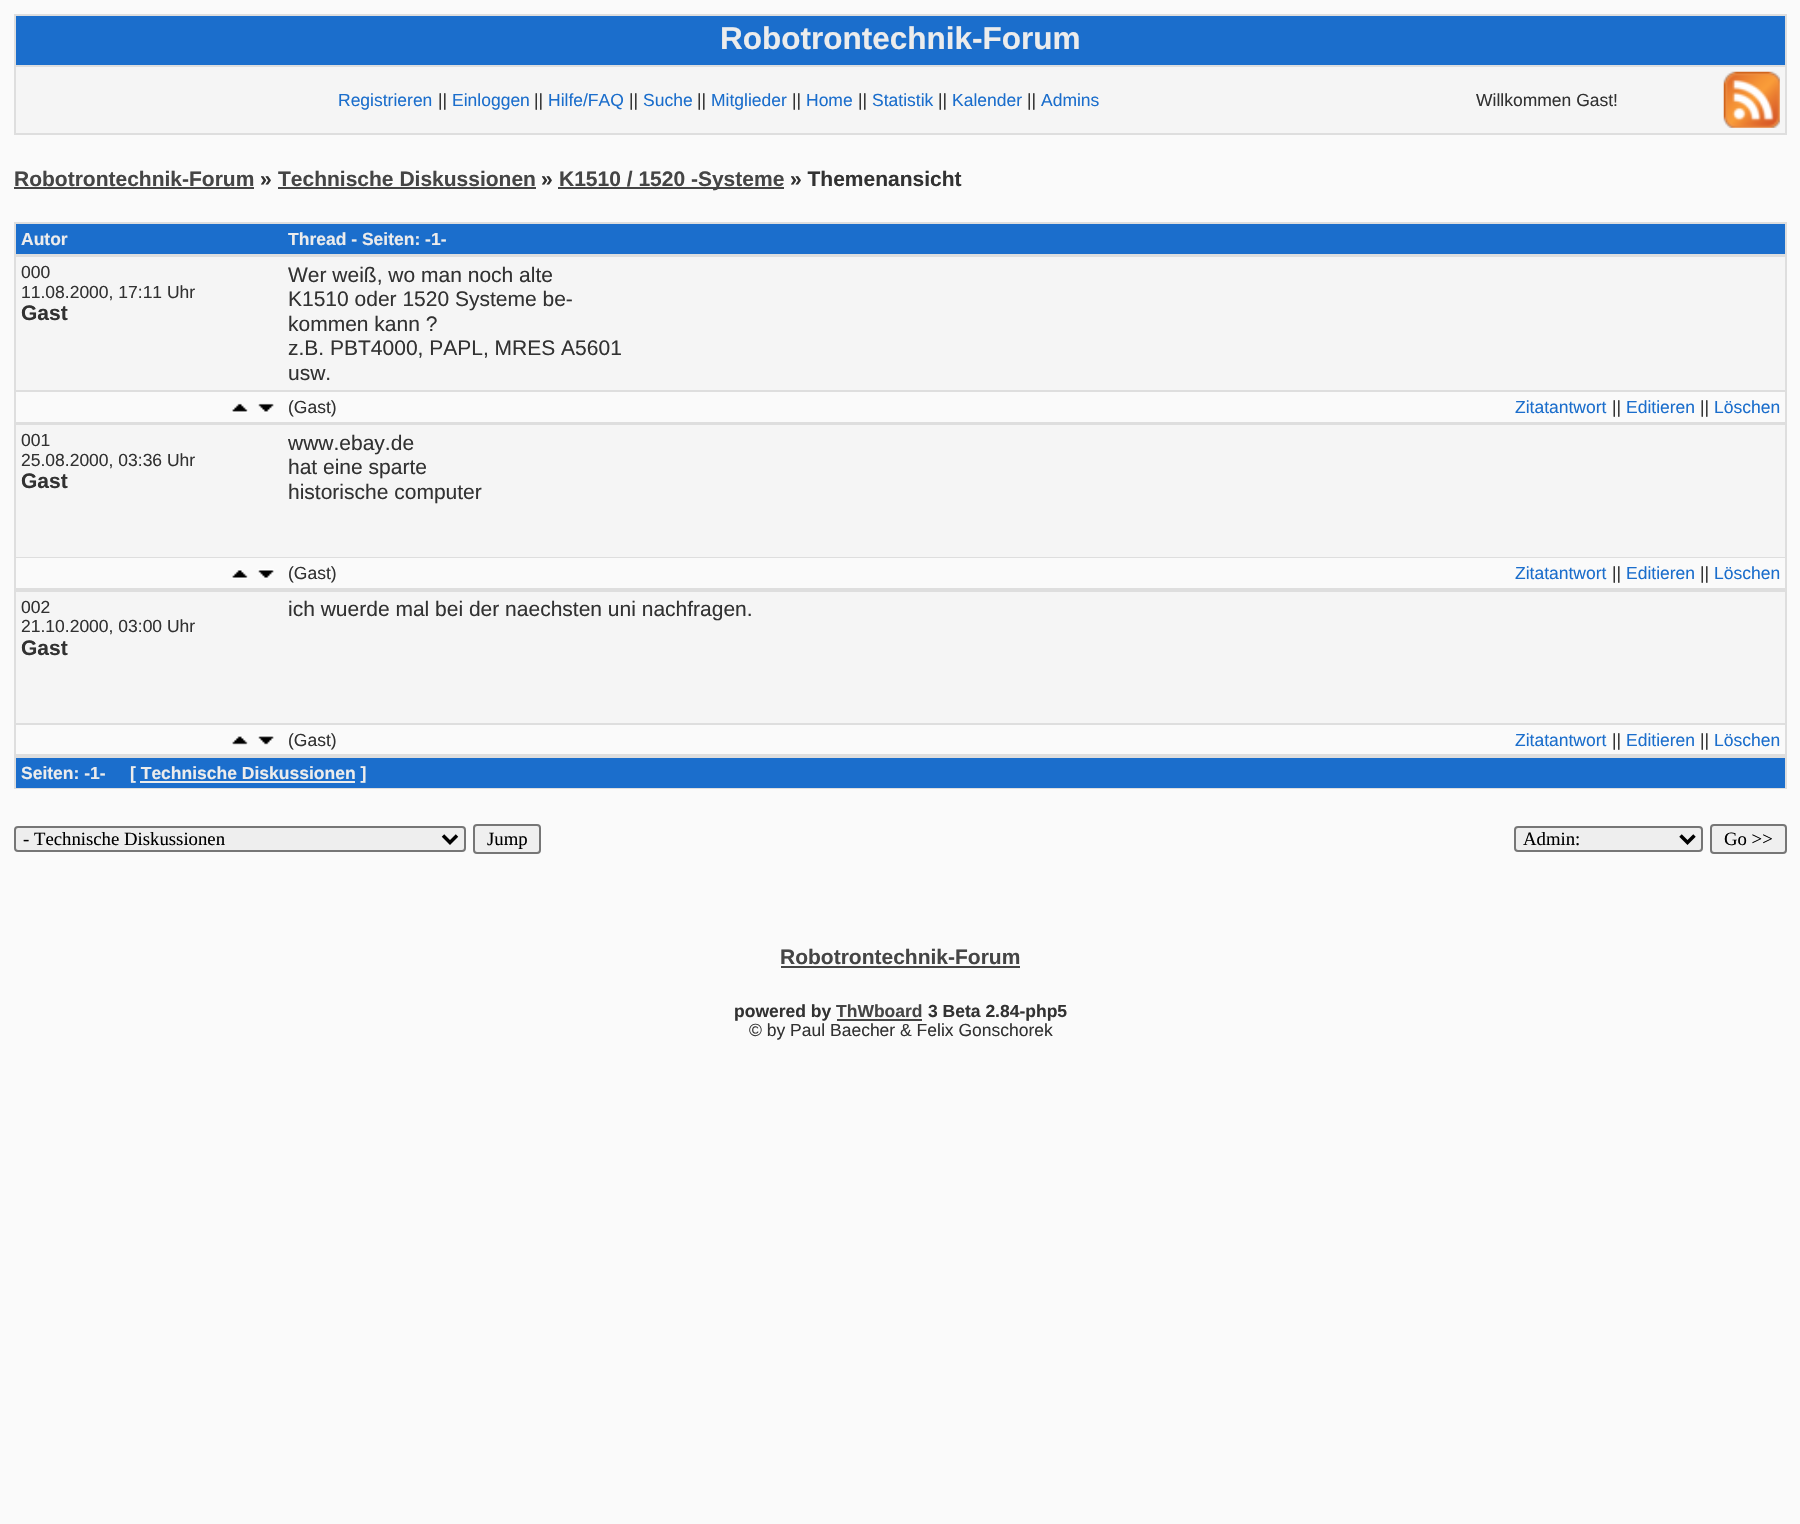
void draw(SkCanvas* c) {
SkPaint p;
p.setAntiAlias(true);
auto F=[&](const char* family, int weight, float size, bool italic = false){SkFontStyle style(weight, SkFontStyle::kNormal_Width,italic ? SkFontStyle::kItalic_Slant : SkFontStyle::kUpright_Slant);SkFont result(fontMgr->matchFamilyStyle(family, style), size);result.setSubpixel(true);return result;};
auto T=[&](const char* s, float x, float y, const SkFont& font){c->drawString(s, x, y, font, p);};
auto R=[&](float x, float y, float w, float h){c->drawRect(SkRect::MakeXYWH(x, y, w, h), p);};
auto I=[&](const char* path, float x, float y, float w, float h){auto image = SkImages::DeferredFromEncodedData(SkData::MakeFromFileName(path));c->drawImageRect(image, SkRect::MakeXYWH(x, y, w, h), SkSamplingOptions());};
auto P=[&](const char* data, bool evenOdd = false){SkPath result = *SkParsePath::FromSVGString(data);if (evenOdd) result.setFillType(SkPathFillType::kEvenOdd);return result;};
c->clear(0xfffafafa);
p.setColor(0xffdedede);
R(14,14,1773,121);
p.setColor(0xff1b6ecc);
R(16,16,1769,49);
auto f1 = F("Liberation Sans",700,31.5);
p.setColor(0xffececec);
T("Robotrontechnik-Forum",720,49,f1);
p.setColor(0xfff5f5f5);
R(16,67,1769,66);
auto f2 = F("Liberation Sans",400,17.5);
p.setColor(0xff1b6ecc);
T("Registrieren",338,106,f2);
p.setColor(0xff323232);
T("||",438,106,f2);
p.setColor(0xff1b6ecc);
T("Einloggen",452,106,f2);
p.setColor(0xff323232);
T("||",534,106,f2);
p.setColor(0xff1b6ecc);
T("Hilfe/FAQ",548,106,f2);
p.setColor(0xff323232);
T("||",629,106,f2);
p.setColor(0xff1b6ecc);
T("Suche",643,106,f2);
p.setColor(0xff323232);
T("||",697,106,f2);
p.setColor(0xff1b6ecc);
T("Mitglieder",711,106,f2);
p.setColor(0xff323232);
T("||",792,106,f2);
p.setColor(0xff1b6ecc);
T("Home",806,106,f2);
p.setColor(0xff323232);
T("||",858,106,f2);
p.setColor(0xff1b6ecc);
T("Statistik",872,106,f2);
p.setColor(0xff323232);
T("||",938,106,f2);
p.setColor(0xff1b6ecc);
T("Kalender",952,106,f2);
p.setColor(0xff323232);
T("||",1027,106,f2);
p.setColor(0xff1b6ecc);
T("Admins",1041,106,f2);
p.setColor(0xff323232);
T("Willkommen Gast!",1476,106,f2);
I("1.png",1723,71,57,57);
auto f3 = F("Liberation Sans",700,21);
p.setColor(0xff454545);
T("Robotrontechnik-Forum",14,186,f3);
R(14,187,240,2);
p.setColor(0xff323232);
T("»",260,186,f3);
p.setColor(0xff454545);
T("Technische Diskussionen",278,186,f3);
R(278,187,258,2);
p.setColor(0xff323232);
T("»",541,186,f3);
p.setColor(0xff454545);
R(558,187,226,2);
T("K1510 / 1520 -Systeme",559,186,f3);
p.setColor(0xff323232);
T("» Themenansicht",790,186,f3);
p.setColor(0xffdedede);
R(14,222,1773,567);
p.setColor(0xff1b6ecc);
R(16,224,1769,30);
auto f4 = F("Liberation Sans",700,17.5);
p.setColor(0xffececec);
T("Autor",21,245,f4);
T("Thread - Seiten: -1-",288,245,f4);
p.setColor(0xfff5f5f5);
R(16,257,1769,133);
p.setColor(0xff323232);
T("000",21,278,f2);
T("11.08.2000, 17:11 Uhr",21,298,f2);
T("Gast",21,320,f3);
auto f5 = F("Liberation Sans",400,21);
T("Wer weiß, wo man noch alte",288,282,f5);
T("K1510 oder 1520 Systeme be-",288,306,f5);
T("kommen kann ?",288,331,f5);
T("z.B. PBT4000, PAPL, MRES A5601",288,355,f5);
T("usw.",288,380,f5);
p.setColor(0xfffafafa);
R(16,392,1769,30);
I("2.png",232,403,16,10);
I("3.png",258,403,16,10);
p.setColor(0xff323232);
T("(Gast)",288,413,f2);
p.setColor(0xff1b6ecc);
T("Zitatantwort",1515,413,f2);
p.setColor(0xff323232);
T("||",1612,413,f2);
p.setColor(0xff1b6ecc);
T("Editieren",1626,413,f2);
p.setColor(0xff323232);
T("||",1700,413,f2);
p.setColor(0xff1b6ecc);
T("Löschen",1714,413,f2);
p.setColor(0xfff5f5f5);
R(16,425,1769,132);
p.setColor(0xff323232);
T("001",21,446,f2);
T("25.08.2000, 03:36 Uhr",21,466,f2);
T("Gast",21,488,f3);
T("www.ebay.de",288,450,f5);
T("hat eine sparte",288,474,f5);
T("historische computer",288,499,f5);
p.setColor(0xfffafafa);
R(16,558,1769,30);
I("4.png",232,569,16,10);
I("5.png",258,569,16,10);
p.setColor(0xff323232);
T("(Gast)",288,579,f2);
p.setColor(0xff1b6ecc);
T("Zitatantwort",1515,579,f2);
p.setColor(0xff323232);
T("||",1612,579,f2);
p.setColor(0xff1b6ecc);
T("Editieren",1626,579,f2);
p.setColor(0xff323232);
T("||",1700,579,f2);
p.setColor(0xff1b6ecc);
T("Löschen",1714,579,f2);
p.setColor(0xfff5f5f5);
R(16,592,1769,131);
p.setColor(0xff323232);
T("002",21,613,f2);
T("21.10.2000, 03:00 Uhr",21,632,f2);
T("Gast",21,655,f3);
T("ich wuerde mal bei der naechsten uni nachfragen.",288,616,f5);
p.setColor(0xfffafafa);
R(16,725,1769,29);
I("6.png",232,735,16,10);
I("7.png",258,735,16,10);
p.setColor(0xff323232);
T("(Gast)",288,746,f2);
p.setColor(0xff1b6ecc);
T("Zitatantwort",1515,746,f2);
p.setColor(0xff323232);
T("||",1612,746,f2);
p.setColor(0xff1b6ecc);
T("Editieren",1626,746,f2);
p.setColor(0xff323232);
T("||",1700,746,f2);
p.setColor(0xff1b6ecc);
T("Löschen",1714,746,f2);
R(16,758,1769,30);
p.setColor(0xffececec);
T("Seiten: -1-",21,779,f4);
T("[ Technische Diskussionen ]",130,779,f4);
R(140,781,215,2);
p.setColor(0xffeeeeee);
c->drawRoundRect(SkRect::MakeXYWH(15,827,450,24),3,3,p);
p.setStroke(true);
p.setStrokeWidth(2);
p.setColor(0xff767676);
c->drawRoundRect(SkRect::MakeXYWH(15,827,450,24),3,3,p);
p.setStrokeWidth(3.5);
p.setColor(0xff000000);
c->drawPath(P("M443 835.5l7 7l7-7"),p);
auto f6 = F("Liberation Serif",400,18.75);
p.setStroke(false);
T("- Technische Diskussionen",23,845,f6);
p.setColor(0xffefefef);
c->drawRoundRect(SkRect::MakeXYWH(474,825,66,28),3,3,p);
p.setStroke(true);
p.setStrokeWidth(2);
p.setColor(0xff767676);
c->drawRoundRect(SkRect::MakeXYWH(474,825,66,28),3,3,p);
p.setStroke(false);
p.setColor(0xff000000);
T("Jump",487,845,f6);
p.setColor(0xffeeeeee);
c->drawRoundRect(SkRect::MakeXYWH(1515,827,187,24),3,3,p);
p.setStroke(true);
p.setColor(0xff767676);
c->drawRoundRect(SkRect::MakeXYWH(1515,827,187,24),3,3,p);
p.setStrokeWidth(3.5);
p.setColor(0xff000000);
c->drawPath(P("M1680.5 835.5l7 7l7-7"),p);
p.setStroke(false);
T("Admin:",1523,845,f6);
p.setColor(0xffefefef);
c->drawRoundRect(SkRect::MakeXYWH(1711,825,75,28),3,3,p);
p.setStroke(true);
p.setStrokeWidth(2);
p.setColor(0xff767676);
c->drawRoundRect(SkRect::MakeXYWH(1711,825,75,28),3,3,p);
p.setStroke(false);
p.setColor(0xff000000);
T("Go >>",1724,845,f6);
p.setColor(0xff454545);
T("Robotrontechnik-Forum",780,964,f3);
R(781,966,239,2);
p.setColor(0xff323232);
T("powered by",734,1017,f4);
p.setColor(0xff454545);
T("ThWboard",836,1017,f4);
R(837,1019,85,2);
p.setColor(0xff323232);
T("3 Beta 2.84-php5",928,1017,f4);
T("© by Paul Baecher & Felix Gonschorek",749,1036,f2);
}
